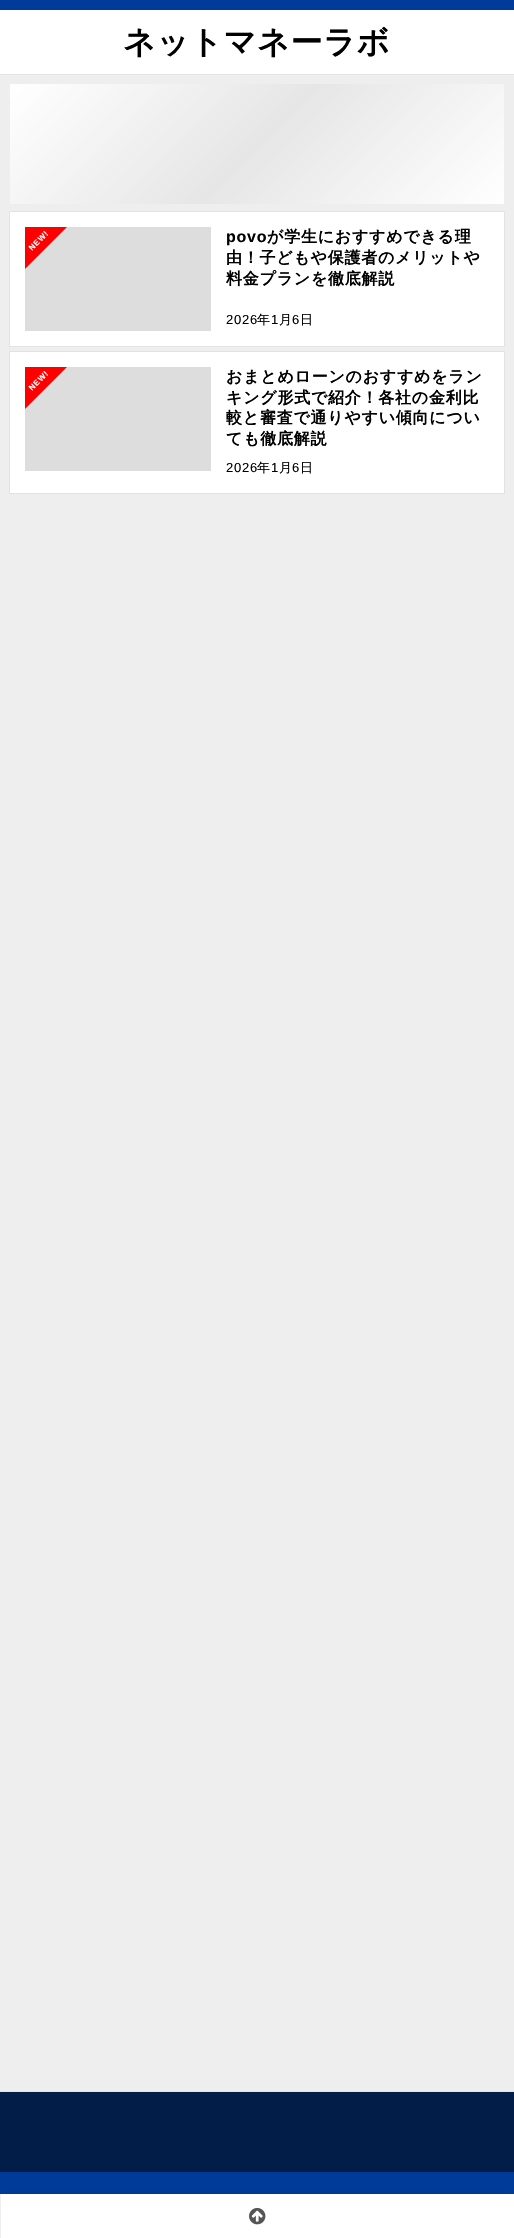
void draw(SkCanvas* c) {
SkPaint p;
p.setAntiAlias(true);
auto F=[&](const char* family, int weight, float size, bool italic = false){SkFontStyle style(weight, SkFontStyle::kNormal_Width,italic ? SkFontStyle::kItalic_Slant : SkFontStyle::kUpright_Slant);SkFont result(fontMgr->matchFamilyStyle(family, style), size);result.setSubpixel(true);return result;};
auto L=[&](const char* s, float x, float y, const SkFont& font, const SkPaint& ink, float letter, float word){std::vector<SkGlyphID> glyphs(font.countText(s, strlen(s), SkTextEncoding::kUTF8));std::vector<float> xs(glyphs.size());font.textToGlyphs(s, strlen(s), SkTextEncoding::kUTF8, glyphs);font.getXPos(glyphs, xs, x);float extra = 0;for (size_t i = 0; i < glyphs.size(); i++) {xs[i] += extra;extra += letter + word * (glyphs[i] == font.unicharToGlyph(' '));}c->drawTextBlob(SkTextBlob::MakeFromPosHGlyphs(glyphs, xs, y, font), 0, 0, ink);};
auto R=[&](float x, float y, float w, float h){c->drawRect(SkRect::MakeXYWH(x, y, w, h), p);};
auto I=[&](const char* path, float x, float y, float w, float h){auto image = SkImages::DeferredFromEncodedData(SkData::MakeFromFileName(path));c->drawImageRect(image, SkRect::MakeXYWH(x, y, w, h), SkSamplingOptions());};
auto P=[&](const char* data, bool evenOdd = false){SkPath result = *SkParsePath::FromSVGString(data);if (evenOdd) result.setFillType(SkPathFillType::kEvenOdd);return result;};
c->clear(0xffeeeeee);
p.setStroke(true);
p.setStrokeWidth(1);
p.setColor(0xffe2e3e5);
c->drawRect(SkRect::MakeXYWH(-.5,-.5,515,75),p);
p.setStroke(false);
p.setColor(0xff013b9a);
R(0,0,514,10);
p.setColor(0xffffffff);
R(0,10,514,64);
auto f1 = F("WenQuanYi Zen Hei",700,32);
p.setColor(0xff000000);
L("ネットマネーラボ",123,53,f1,p,.75,0);
{
const SkColor colors[] = {0xffffffff,0xffe6e6e6,0xffffffff};
const float stops[] = {0,.5,1};
const SkPoint ends[] = {{103,-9}, {411,298}};
p.setShader(SkGradientShader::MakeLinear(ends, colors, stops, 3, SkTileMode::kClamp));
p.setAlpha(255);
}
R(10,84,494,120);
p.setStroke(true);
p.setShader(nullptr);
p.setColor(0xffe2e3e5);
c->drawRect(SkRect::MakeXYWH(9.5,211.5,495,135),p);
p.setStroke(false);
p.setColor(0xffffffff);
R(10,212,494,134);
p.setColor(0xffdddddd);
R(25,227,186,104);
p.setColor(0xffff0000);
c->drawPath(P("M25 269v-42h42z"),p);
auto f2 = F("Liberation Sans",700,8);
p.setColor(0xffffffff);
c->save();
c->rotate(-45,32,251);
L("NEW!",32,251,f2,p,.75,0);
c->restore();
auto f3 = F("Liberation Sans",700,16);
p.setColor(0xff000000);
L("povo",226,242,f3,p,.75,0);
auto f4 = F("WenQuanYi Zen Hei",700,16);
L("が学生におすすめできる理",267,242,f4,p,.75,0);
L("由！子どもや保護者のメリットや",226,263,f4,p,.75,0);
L("料金プランを徹底解説",226,284,f4,p,.75,0);
auto f5 = F("Liberation Sans",400,13);
L("2026",226,324,f5,p,.75,0);
auto f6 = F("WenQuanYi Zen Hei",500,13);
L("年",257,324,f6,p,.75,0);
L("1",271,324,f5,p,.75,0);
L("月",279,324,f6,p,.75,0);
L("6",292,324,f5,p,.75,0);
L("日",300,324,f6,p,.75,0);
p.setStroke(true);
p.setColor(0x33b0b5c1);
c->drawRect(SkRect::MakeXYWH(9.5,351.5,495,142),p);
p.setStroke(false);
p.setColor(0xffffffff);
R(10,352,494,141);
p.setColor(0xffdddddd);
R(25,367,186,104);
p.setColor(0xffff0000);
c->drawPath(P("M25 409v-42h42z"),p);
p.setColor(0xffffffff);
c->save();
c->rotate(-45,32,391);
L("NEW!",32,391,f2,p,.75,0);
c->restore();
p.setColor(0xff000000);
L("おまとめローンのおすすめをラン",226,382,f4,p,.75,0);
L("キング形式で紹介！各社の金利比",226,403,f4,p,.75,0);
L("較と審査で通りやすい傾向につい",226,423,f4,p,.75,0);
L("ても徹底解説",226,444,f4,p,.75,0);
L("2026",226,472,f5,p,.75,0);
L("年",257,472,f6,p,.75,0);
L("1",271,472,f5,p,.75,0);
L("月",279,472,f6,p,.75,0);
L("6",292,472,f5,p,.75,0);
L("日",300,472,f6,p,.75,0);
p.setStroke(true);
p.setColor(0xffe2e3e5);
c->drawRect(SkRect::MakeXYWH(-.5,2091.5,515,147),p);
p.setStroke(false);
p.setColor(0xff013b9a);
R(0,2172,514,22);
p.setColor(0xff021e48);
R(0,2092,514,80);
p.setColor(0x33000000);
p.setMaskFilter(SkMaskFilter::MakeBlur(kNormal_SkBlurStyle, 7.5));
c->drawRect(SkRect::MakeXYWH(5,2199,504,34),p);
p.setMaskFilter(nullptr);
p.setColor(0xffffffff);
R(1,2194,513,44);
p.setColor(0xffeeeeee);
R(0,2194,1,44);
I("1.png",249,2207,17,18);
}
